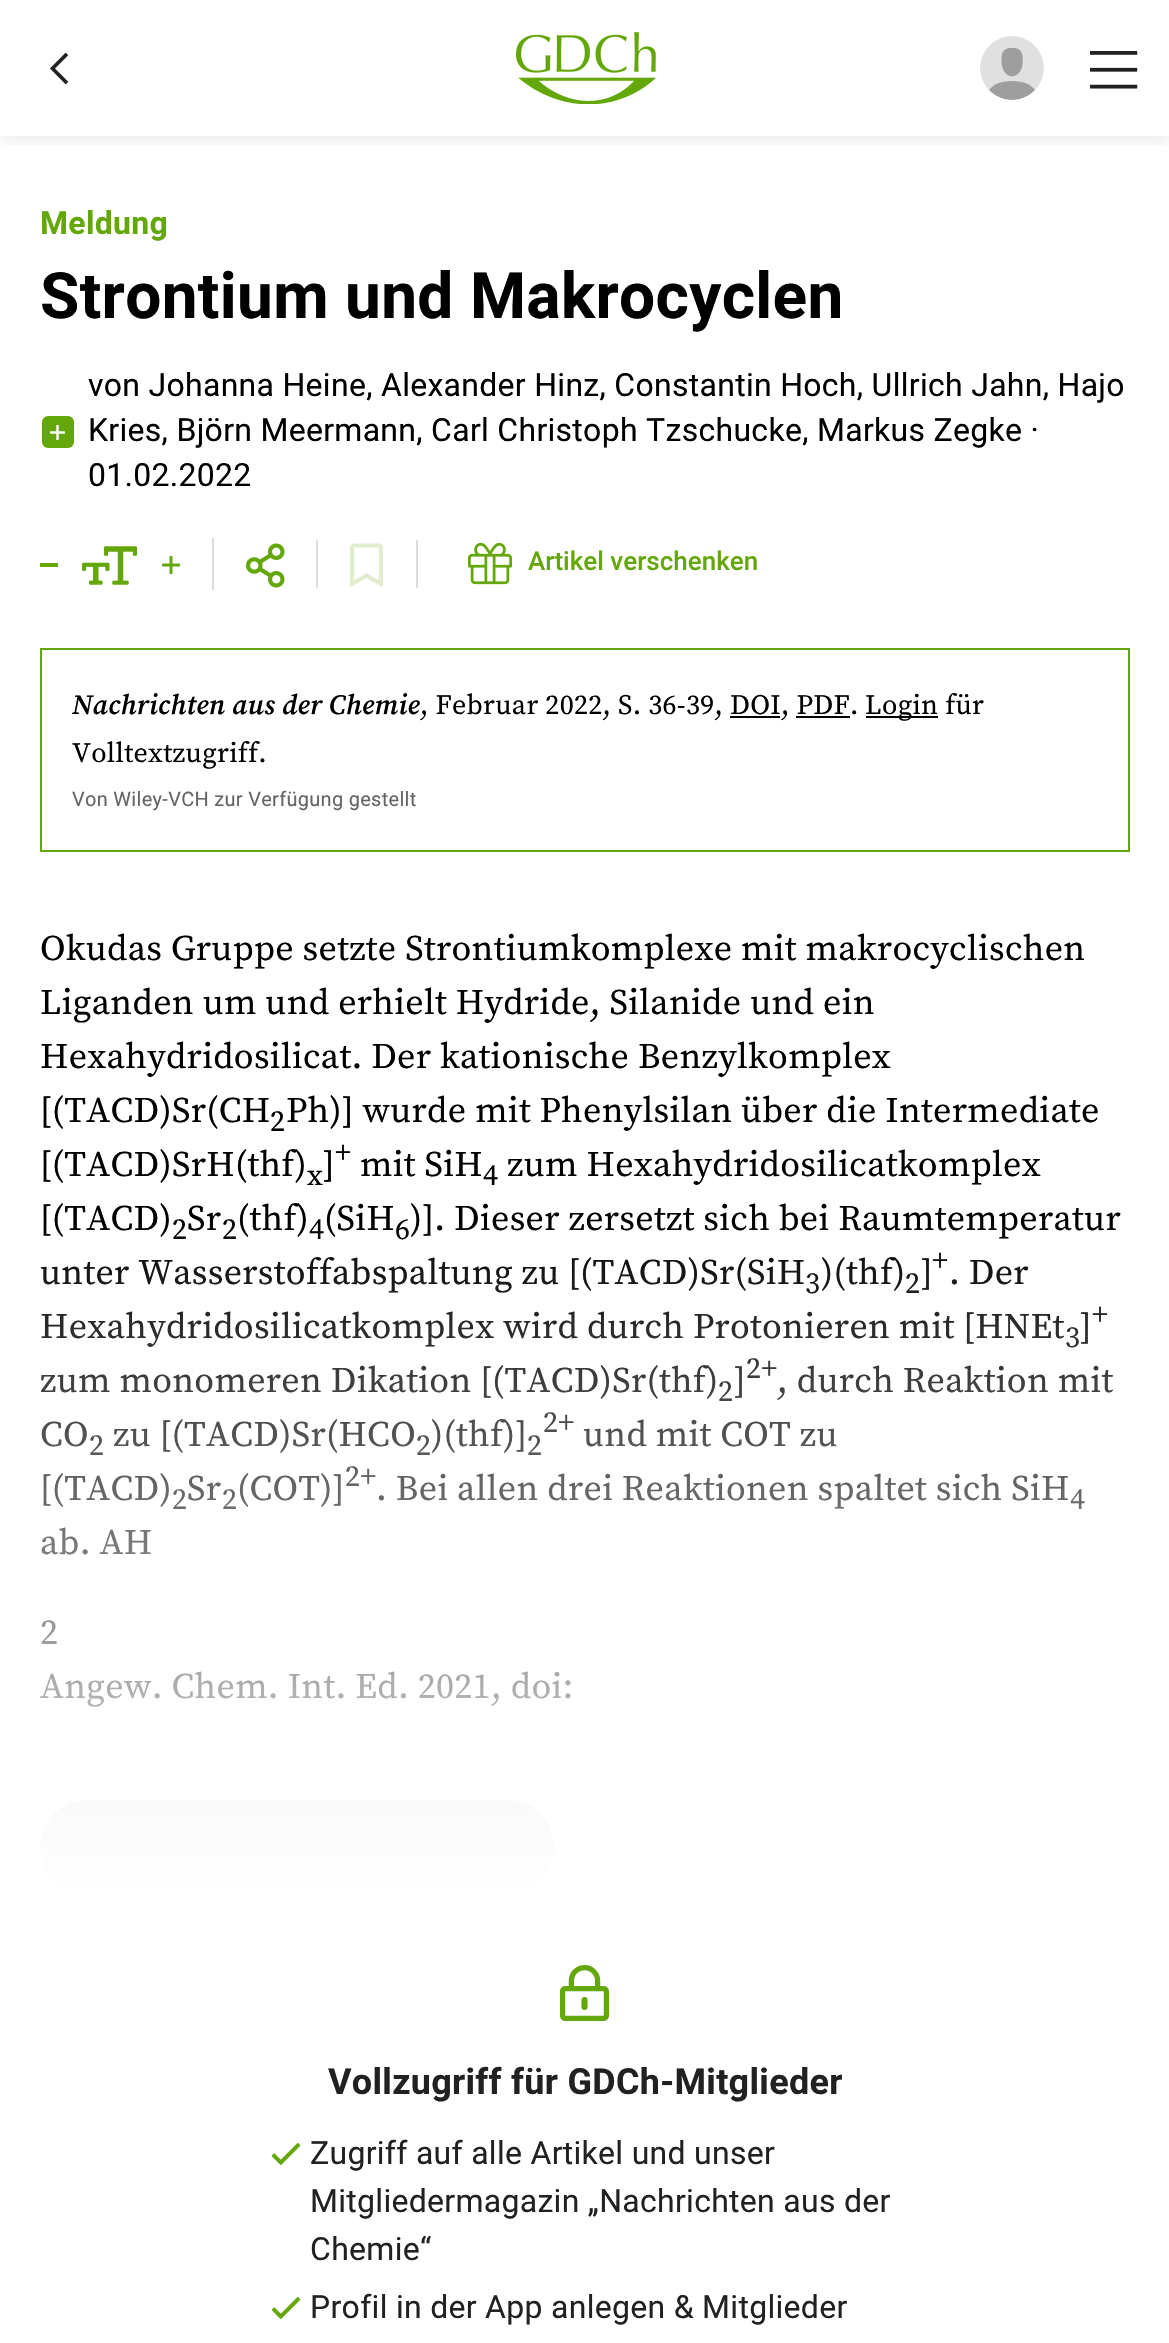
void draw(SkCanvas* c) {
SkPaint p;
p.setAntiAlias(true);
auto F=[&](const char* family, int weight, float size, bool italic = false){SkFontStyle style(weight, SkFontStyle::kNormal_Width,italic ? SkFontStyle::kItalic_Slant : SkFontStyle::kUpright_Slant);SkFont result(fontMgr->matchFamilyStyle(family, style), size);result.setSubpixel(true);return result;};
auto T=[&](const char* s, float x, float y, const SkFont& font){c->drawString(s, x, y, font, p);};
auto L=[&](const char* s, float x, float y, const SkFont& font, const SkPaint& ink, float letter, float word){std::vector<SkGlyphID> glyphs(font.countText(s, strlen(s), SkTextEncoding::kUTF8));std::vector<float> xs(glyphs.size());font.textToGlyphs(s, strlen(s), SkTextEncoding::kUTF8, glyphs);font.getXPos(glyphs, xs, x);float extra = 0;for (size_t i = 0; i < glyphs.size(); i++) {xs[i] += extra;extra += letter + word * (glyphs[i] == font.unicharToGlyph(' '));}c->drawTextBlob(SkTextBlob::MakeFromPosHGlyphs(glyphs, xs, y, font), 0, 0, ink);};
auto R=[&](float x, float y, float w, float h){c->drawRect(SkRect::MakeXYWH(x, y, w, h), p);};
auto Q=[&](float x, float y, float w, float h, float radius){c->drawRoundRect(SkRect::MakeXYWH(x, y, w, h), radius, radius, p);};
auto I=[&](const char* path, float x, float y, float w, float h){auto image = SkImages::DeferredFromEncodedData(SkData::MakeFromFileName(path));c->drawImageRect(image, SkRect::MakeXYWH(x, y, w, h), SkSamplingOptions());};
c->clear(0xffffffff);
c->save();
c->clipRect(SkRect::MakeXYWH(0,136,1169,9));
p.setColor(0x14000000);
p.setMaskFilter(SkMaskFilter::MakeBlur(kNormal_SkBlurStyle, 8));
c->drawRect(SkRect::MakeXYWH(0,4,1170,136),p);
p.setMaskFilter(nullptr);
c->restore();
I("1.png",50,53,18,31);
I("2.png",516,32,140,72);
I("3.png",980,36,64,64);
I("4.png",1090,51,48,38);
auto f1 = F("Roboto",700,32);
p.setColor(0xff64a70b);
L("Meldung",40,234,f1,p,.3,0);
auto f2 = F("Roboto",700,64);
p.setColor(0xff000000);
L("Strontium und Makrocyclen",40,318,f2,p,.3,0);
p.setColor(0xff64a70b);
Q(42,416,32,32,6);
I("5.png",50,425,15,15);
auto f3 = F("Roboto",400,32);
p.setColor(0xff000000);
L("von Johanna Heine, Alexander Hinz, Constantin Hoch, Ullrich Jahn, Hajo",88,396,f3,p,.3,0);
L("Kries, Björn Meermann, Carl Christoph Tzschucke, Markus Zegke ·",88,441,f3,p,.3,0);
L("01.02.2022",88,486,f3,p,.3,0);
p.setColor(0xffdddddd);
R(212,538,2,52);
p.setColor(0xff64a70b);
R(40,563,18,4);
I("6.png",82,546,55,39);
I("7.png",162,556,18,18);
p.setColor(0xffdddddd);
R(316,540,2,48);
I("8.png",246,543,39,45);
R(416,540,2,48);
I("9.png",350,543,33,45);
I("10.png",468,542,44,43);
auto f4 = F("Roboto",500,26);
p.setColor(0xff64a70b);
T("Artikel verschenken",528,570,f4);
p.setStroke(true);
p.setStrokeWidth(2);
c->drawRect(SkRect::MakeXYWH(41,649,1088,202),p);
auto f5 = F("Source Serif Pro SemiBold",600,28,true);
p.setStroke(false);
p.setColor(0xff000000);
L("Nachrichten aus der Chemie",72,714,f5,p,.3,0);
auto f6 = F("Source Serif Pro",400,28);
L(", Februar 2022, S. 36-39, DOI, PDF.",420,714,f6,p,.3,0);
R(730,716,50,2);
R(796,716,54,2);
R(866,716,72,2);
L("Login für",865,714,f6,p,.3,0);
L("Volltextzugriff.",72,762,f6,p,.3,0);
auto f7 = F("Roboto",400,20);
p.setColor(0xff646464);
L("Von Wiley-VCH zur Verfügung gestellt",72,806,f7,p,.3,0);
auto f8 = F("Source Serif Pro",400,36);
p.setColor(0xff000000);
L("Okudas Gruppe setzte Strontiumkomplexe mit makrocyclischen",40,960,f8,p,.3,0);
L("Liganden um und erhielt Hydride, Silanide und ein",40,1014,f8,p,.3,0);
L("Hexahydridosilicat. Der kationische Benzylkomplex",40,1068,f8,p,.3,0);
L("[(TACD)Sr(CH",40,1122,f8,p,.3,0);
auto f9 = F("Source Serif Pro",400,30);
L("2",270,1131,f9,p,.3,0);
L("Ph)] wurde mit Phenylsilan über die Intermediate",286,1122,f8,p,.3,0);
L("[(TACD)SrH(thf)",40,1176,f8,p,.3,0);
L("x",307,1185,f9,p,.3,0);
L("]",323,1176,f8,p,.3,0);
L("+",335,1162,f9,p,.3,0);
L("mit SiH",360,1176,f8,p,.3,0);
L("4",483,1185,f9,p,.3,0);
L("zum Hexahydridosilicatkomplex",507,1176,f8,p,.3,0);
L("[(TACD)",40,1230,f8,p,.3,0);
L("2",172,1239,f9,p,.3,0);
L("Sr",187,1230,f8,p,.3,0);
L("2",222,1239,f9,p,.3,0);
L("(thf)",237,1230,f8,p,.3,0);
L("4",309,1239,f9,p,.3,0);
L("(SiH",324,1230,f8,p,.3,0);
L("6",395,1239,f9,p,.3,0);
L(")]. Dieser zersetzt sich bei Raumtemperatur",410,1230,f8,p,.3,0);
L("unter Wasserstoffabspaltung zu [(TACD)Sr(SiH",40,1284,f8,p,.3,0);
L("3",805,1293,f9,p,.3,0);
L(")(thf)",821,1284,f8,p,.3,0);
L("2",905,1293,f9,p,.3,0);
L("]",921,1284,f8,p,.3,0);
L("+",932,1270,f9,p,.3,0);
L(". Der",949,1284,f8,p,.3,0);
L("Hexahydridosilicatkomplex wird durch Protonieren mit [HNEt",40,1338,f8,p,.3,0);
L("3",1065,1347,f9,p,.3,0);
L("]",1080,1338,f8,p,.3,0);
L("+",1092,1324,f9,p,.3,0);
L("zum monomeren Dikation [(TACD)Sr(thf)",40,1392,f8,p,.3,0);
L("2",718,1401,f9,p,.3,0);
L("]",734,1392,f8,p,.3,0);
L("2+",746,1378,f9,p,.3,0);
L(", durch Reaktion mit",777,1392,f8,p,.3,0);
L("CO",40,1446,f8,p,.3,0);
L("2",89,1455,f9,p,.3,0);
L("zu [(TACD)Sr(HCO",113,1446,f8,p,.3,0);
L("2",416,1455,f9,p,.3,0);
L(")(thf)]",431,1446,f8,p,.3,0);
L("2",527,1455,f9,p,.3,0);
L("2+",543,1432,f9,p,.3,0);
L("und mit COT zu",583,1446,f8,p,.3,0);
L("[(TACD)",40,1500,f8,p,.3,0);
L("2",172,1509,f9,p,.3,0);
L("Sr",187,1500,f8,p,.3,0);
L("2",222,1509,f9,p,.3,0);
L("(COT)]",237,1500,f8,p,.3,0);
L("2+",345,1486,f9,p,.3,0);
L(". Bei allen drei Reaktionen spaltet sich SiH",376,1500,f8,p,.3,0);
L("4",1070,1509,f9,p,.3,0);
L("ab. AH",40,1554,f8,p,.3,0);
L("2",40,1644,f8,p,.3,0);
L("Angew. Chem. Int. Ed. 2021, doi:",40,1698,f8,p,.3,0);
p.setColor(0xffdddddd);
Q(40,1800,514,94,47);
{
const SkColor colors[] = {0x00ffffff,0xffffffff};
const float stops[] = {0,1};
const SkPoint ends[] = {{585,1210}, {585,1910}};
p.setShader(SkGradientShader::MakeLinear(ends, colors, stops, 2, SkTileMode::kClamp));
p.setAlpha(255);
}
R(40,1225,1076,669);
I("11.png",560,1965,49,56);
auto f10 = F("Roboto",700,36);
p.setShader(nullptr);
p.setColor(0xff212121);
L("Vollzugriff für GDCh-Mitglieder",328,2094,f10,p,.3,0);
I("12.png",271,2143,30,22);
L("Zugriff auf alle Artikel und unser",310,2164,f3,p,.3,0);
L("Mitgliedermagazin „Nachrichten aus der",310,2212,f3,p,.3,0);
L("Chemie“",310,2260,f3,p,.3,0);
I("12.png",271,2297,30,22);
L("Profil in der App anlegen & Mitglieder",310,2318,f3,p,.3,0);
}
